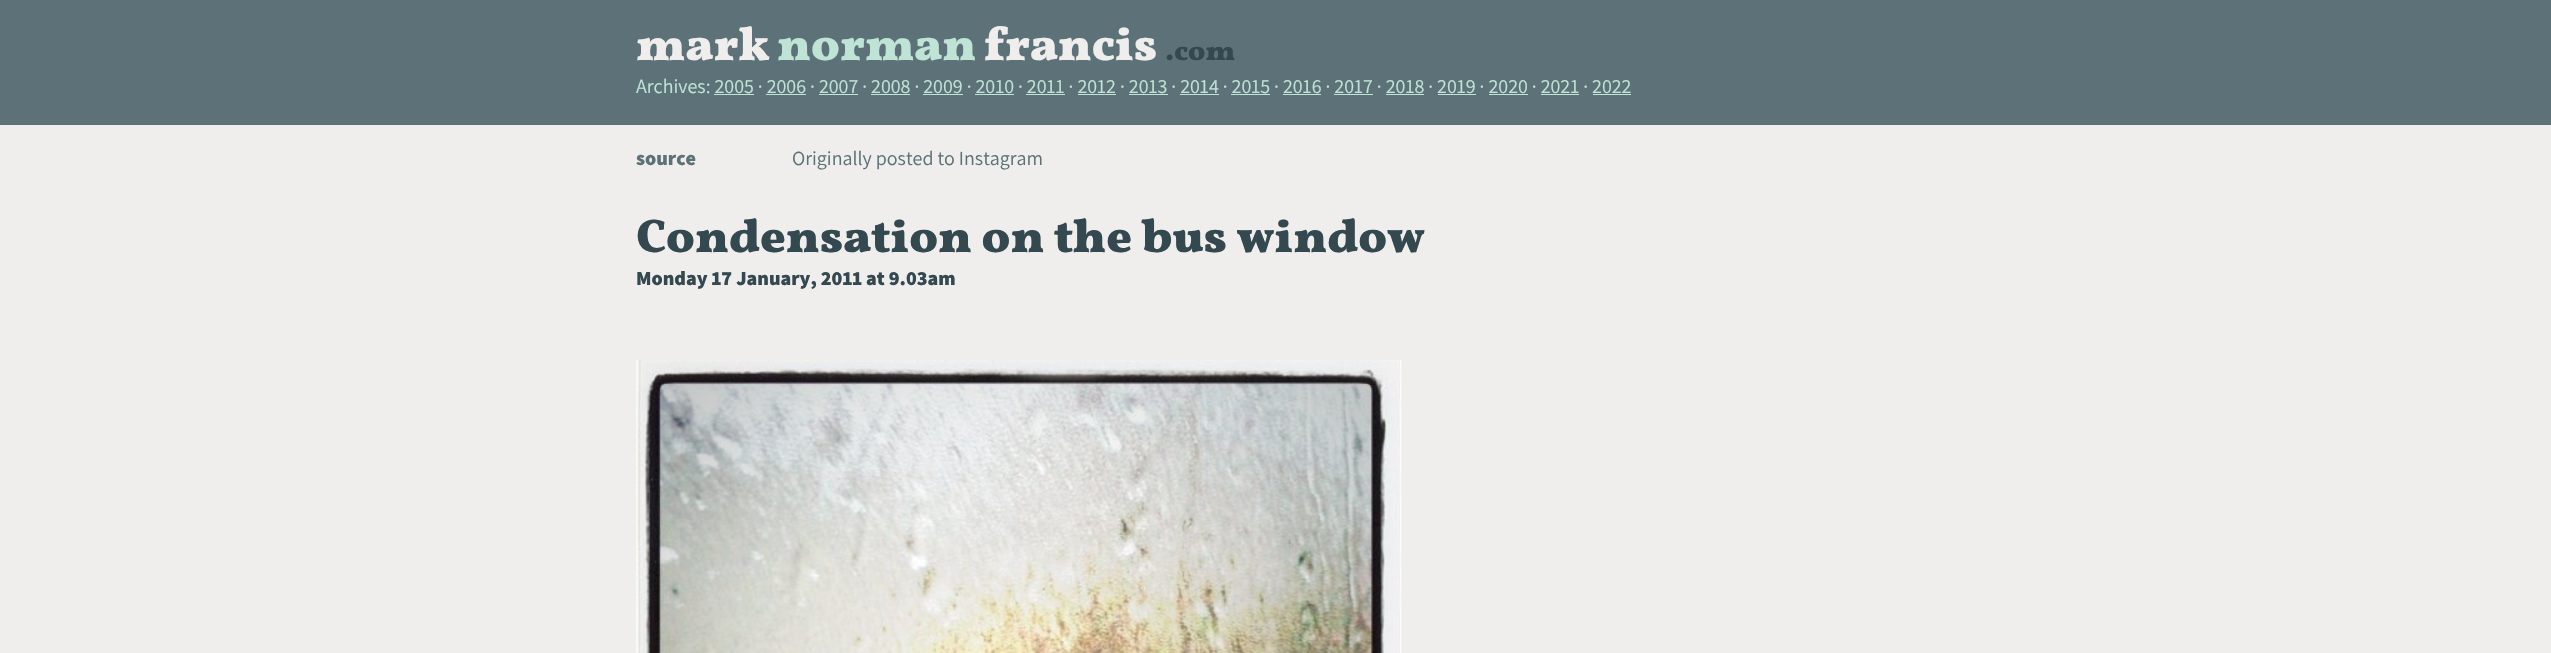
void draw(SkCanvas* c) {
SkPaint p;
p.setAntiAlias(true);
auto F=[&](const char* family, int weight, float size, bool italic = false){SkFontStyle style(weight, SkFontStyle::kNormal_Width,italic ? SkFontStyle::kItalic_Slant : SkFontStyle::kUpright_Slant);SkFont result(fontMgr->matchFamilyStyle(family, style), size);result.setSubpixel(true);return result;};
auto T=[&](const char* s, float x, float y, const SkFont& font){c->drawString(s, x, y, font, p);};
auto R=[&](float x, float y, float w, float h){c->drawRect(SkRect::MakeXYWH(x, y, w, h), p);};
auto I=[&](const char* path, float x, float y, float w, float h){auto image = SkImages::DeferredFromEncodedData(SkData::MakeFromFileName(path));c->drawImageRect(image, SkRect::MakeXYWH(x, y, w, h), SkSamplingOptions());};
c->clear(0xffefeeec);
p.setColor(0xff5c7178);
R(0,0,2551,125);
auto f1 = F("Vollkorn",900,47.5);
p.setColor(0xffefeeec);
T("mark",636,60,f1);
p.setColor(0xffbfe3d5);
T("norman",777,60,f1);
p.setColor(0xffefeeec);
T("francis",984,60,f1);
auto f2 = F("Vollkorn",900,28.5);
p.setColor(0xff33484f);
T(".com",1165,60,f2);
auto f3 = F("Assistant",400,20);
p.setColor(0xffbfe3d5);
T("Archives: 2005 · 2006 · 2007 · 2008 · 2009 · 2010 · 2011 · 2012 · 2013 · 2014 · 2015 · 2016 · 2017 · 2018 · 2019 · 2020 · 2021 · 2022",636,93,f3);
R(714,94,40,1);
R(766,94,40,1);
R(819,94,39,1);
R(871,94,39,1);
R(923,94,40,1);
R(975,94,39,1);
R(1026,94,39,1);
R(1078,94,38,1);
R(1129,94,39,1);
R(1180,94,39,1);
R(1231,94,39,1);
R(1283,94,38,1);
R(1334,94,39,1);
R(1386,94,38,1);
R(1438,94,38,1);
R(1489,94,39,1);
R(1541,94,38,1);
R(1593,94,38,1);
auto f4 = F("Assistant",800,20);
p.setColor(0xff5c7178);
T("source",636,165,f4);
T("Originally posted to Instagram",792,165,f3);
p.setColor(0xff33484f);
T("Condensation on the bus window",636,252,f1);
T("Monday 17 January, 2011 at 9.03am",636,285,f4);
I("1.png",636,360,766,293);
}
